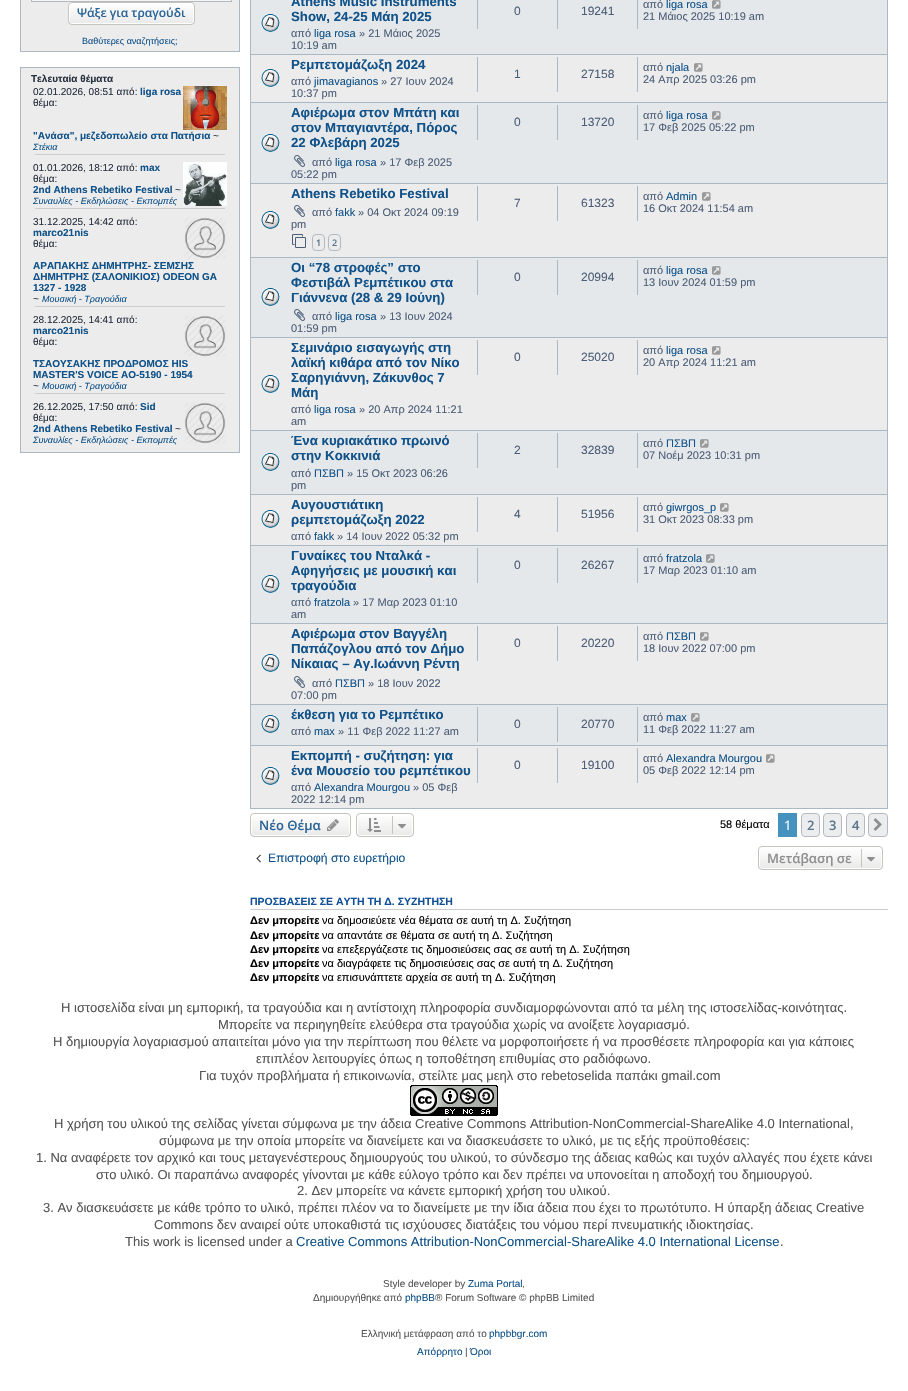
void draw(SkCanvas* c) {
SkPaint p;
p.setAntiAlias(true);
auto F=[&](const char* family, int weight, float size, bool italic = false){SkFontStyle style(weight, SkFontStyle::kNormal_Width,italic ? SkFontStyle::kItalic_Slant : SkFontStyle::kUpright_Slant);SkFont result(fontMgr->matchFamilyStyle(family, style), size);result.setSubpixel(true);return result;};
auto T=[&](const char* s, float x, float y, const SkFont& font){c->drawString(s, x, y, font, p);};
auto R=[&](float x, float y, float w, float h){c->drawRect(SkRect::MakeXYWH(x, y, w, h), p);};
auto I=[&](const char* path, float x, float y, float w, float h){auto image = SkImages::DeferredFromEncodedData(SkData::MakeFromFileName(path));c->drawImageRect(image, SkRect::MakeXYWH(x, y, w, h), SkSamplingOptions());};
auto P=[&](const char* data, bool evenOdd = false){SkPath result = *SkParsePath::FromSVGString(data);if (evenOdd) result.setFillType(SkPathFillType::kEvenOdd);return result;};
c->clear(0xffffffff);
p.setColor(0xffececec);
c->drawRect(SkRect::MakeXYWH(20.5,-.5,219,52),p);
p.setStroke(true);
p.setStrokeWidth(1);
p.setColor(0xffa9b8c2);
c->drawRect(SkRect::MakeXYWH(20.5,-.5,219,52),p);
p.setStroke(false);
p.setColor(0xfff5f5f5);
c->drawRect(SkRect::MakeXYWH(31.5,-.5,200,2),p);
p.setStroke(true);
p.setColor(0xffb4bac0);
c->drawRect(SkRect::MakeXYWH(31.5,-.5,200,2),p);
c->save();
c->clipPath(P("M72 2h119c2 0 4 2 4 4v15c0 2-2 4-4 4h-119c-2 0-4-2-4-4v-15c0-2 2-4 4-4z"),true);
p.setStroke(false);
{
const SkColor colors[] = {0xffffffff,0xffe9e9e9};
const float stops[] = {0,1};
const SkPoint ends[] = {{132,3}, {132,24}};
p.setShader(SkGradientShader::MakeLinear(ends, colors, stops, 2, SkTileMode::kClamp));
p.setAlpha(255);
}
R(68,3,127,21);
c->restore();
p.setStroke(true);
p.setShader(nullptr);
p.setColor(0xffffffff);
c->drawRoundRect(SkRect::MakeXYWH(69.5,3.5,124,20),2.5,2.5,p);
p.setColor(0xffc7c3bf);
c->drawRoundRect(SkRect::MakeXYWH(68.5,2.5,126,22),3.5,3.5,p);
auto f1 = F("Open Sans",600,12);
p.setStroke(false);
p.setColor(0xff2a6496);
T("Ψάξε για τραγούδι",77,17,f1);
auto f2 = F("Liberation Sans",400,9);
p.setColor(0xff105289);
T("Βαθύτερες αναζητήσεις;",82,44,f2);
p.setColor(0xffececec);
c->drawRect(SkRect::MakeXYWH(20.5,67.5,219,385),p);
p.setStroke(true);
p.setColor(0xffa9b8c2);
c->drawRect(SkRect::MakeXYWH(20.5,67.5,219,385),p);
auto f3 = F("Liberation Sans",700,10);
p.setStroke(false);
p.setColor(0xff28313f);
T("Τελευταία θέματα",31,82,f3);
auto f4 = F("Liberation Sans",400,10);
T("02.01.2026, 08:51 από:",33,95,f4);
p.setColor(0xff105289);
T("liga rosa",140,95,f3);
I("1.png",183,86,44,44);
p.setColor(0xff28313f);
T("θέμα:",33,106,f4);
p.setColor(0xff105289);
T("\"Ανάσα\", μεζεδοπωλείο στα Πατήσια",33,139,f3);
p.setColor(0xff28313f);
T("~",213,139,f4);
auto f5 = F("Liberation Sans",400,9,true);
p.setColor(0xff105289);
T("Στέκια",33,150,f5);
p.setColor(0xffcccccc);
R(35,154,190,1);
p.setColor(0xff28313f);
T("01.01.2026, 18:12 από:",33,171,f4);
p.setColor(0xff105289);
T("max",140,171,f3);
I("2.png",183,162,44,44);
p.setColor(0xff28313f);
T("θέμα:",33,182,f4);
p.setColor(0xff105289);
T("2nd Athens Rebetiko Festival",33,193,f3);
p.setColor(0xff28313f);
T("~",175,193,f4);
p.setColor(0xff105289);
T("Συναυλίες - Εκδηλώσεις - Εκπομπές",33,204,f5);
p.setColor(0xffcccccc);
R(35,208,190,1);
p.setColor(0xff28313f);
T("31.12.2025, 14:42 από:",33,225,f4);
I("3.png",184,217,42,42);
p.setColor(0xff105289);
T("marco21nis",33,236,f3);
p.setColor(0xff28313f);
T("θέμα:",33,247,f4);
p.setColor(0xff105289);
T("ΑΡΑΠΑΚΗΣ ΔΗΜΗΤΡΗΣ- ΣΕΜΣΗΣ",33,269,f3);
T("ΔΗΜΗΤΡΗΣ (ΣΑΛΟΝΙΚΙΟΣ) ODEON GA",33,280,f3);
T("1327 - 1928",33,291,f3);
p.setColor(0xff28313f);
T("~",33,302,f4);
p.setColor(0xff105289);
T("Μουσική - Τραγούδια",42,302,f5);
p.setColor(0xffcccccc);
R(35,306,190,1);
p.setColor(0xff28313f);
T("28.12.2025, 14:41 από:",33,323,f4);
I("3.png",184,315,42,42);
p.setColor(0xff105289);
T("marco21nis",33,334,f3);
p.setColor(0xff28313f);
T("θέμα:",33,345,f4);
p.setColor(0xff105289);
T("ΤΣΑΟΥΣΑΚΗΣ ΠΡΟΔΡΟΜΟΣ HIS",33,367,f3);
T("MASTER'S VOICE AO-5190 - 1954",33,378,f3);
p.setColor(0xff28313f);
T("~",33,389,f4);
p.setColor(0xff105289);
T("Μουσική - Τραγούδια",42,389,f5);
p.setColor(0xffcccccc);
R(35,393,190,1);
p.setColor(0xff28313f);
T("26.12.2025, 17:50 από:",33,410,f4);
p.setColor(0xff105289);
T("Sid",140,410,f3);
I("3.png",184,402,42,42);
p.setColor(0xff28313f);
T("θέμα:",33,421,f4);
p.setColor(0xff105289);
T("2nd Athens Rebetiko Festival",33,432,f3);
p.setColor(0xff28313f);
T("~",175,432,f4);
p.setColor(0xff105289);
T("Συναυλίες - Εκδηλώσεις - Εκπομπές",33,443,f5);
p.setColor(0xffececec);
R(251,55,636,753);
p.setStroke(true);
p.setColor(0xffa9b8c2);
c->drawRect(SkRect::MakeXYWH(250.5,-.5,637,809),p);
p.setStroke(false);
p.setColor(0xffe5e8ea);
R(251,0,636,54);
I("4.png",261,14,19,18);
auto f6 = F("Liberation Sans",700,13.25);
p.setColor(0xff105289);
T("Athens Music Instruments",291,6,f6);
T("Show, 24-25 Μάη 2025",291,21,f6);
auto f7 = F("Liberation Sans",400,11);
p.setColor(0xff4c5d77);
T("από",291,37,f7);
p.setColor(0xff105289);
T("liga rosa",314,37,f7);
p.setColor(0xff4c5d77);
T("» 21 Μάιος 2025",359,37,f7);
T("10:19 am",291,49,f7);
p.setColor(0xffa9b8c2);
R(477,0,1,29);
auto f8 = F("Liberation Sans",400,12);
p.setColor(0xff4c5d77);
T("0",514,15,f8);
p.setColor(0xffa9b8c2);
R(557,0,1,29);
p.setColor(0xff4c5d77);
T("19241",581,15,f8);
p.setColor(0xffa9b8c2);
R(637,0,1,29);
p.setColor(0xff4c5d77);
T("από",643,8,f7);
p.setColor(0xff105289);
T("liga rosa",666,8,f7);
I("5.png",712,0,9,9);
p.setColor(0xff4c5d77);
T("21 Μάιος 2025 10:19 am",643,20,f7);
p.setColor(0xffa9b8c2);
R(251,54,636,1);
I("6.png",261,69,19,18);
p.setColor(0xff105289);
T("Ρεμπετομάζωξη 2024",291,69,f6);
p.setColor(0xff4c5d77);
T("από",291,85,f7);
p.setColor(0xff105289);
T("jimavagianos",314,85,f7);
p.setColor(0xff4c5d77);
T("» 27 Ιουν 2024",381,85,f7);
T("10:37 pm",291,97,f7);
p.setColor(0xffa9b8c2);
R(477,57,1,35);
p.setColor(0xff4c5d77);
T("1",514,78,f8);
p.setColor(0xffa9b8c2);
R(557,57,1,35);
p.setColor(0xff4c5d77);
T("27158",581,78,f8);
p.setColor(0xffa9b8c2);
R(637,57,1,35);
p.setColor(0xff4c5d77);
T("από",643,71,f7);
p.setColor(0xff105289);
T("njala",666,71,f7);
I("7.png",694,63,9,9);
p.setColor(0xff4c5d77);
T("24 Απρ 2025 03:26 pm",643,83,f7);
p.setColor(0xffe5e8ea);
R(251,103,636,80);
p.setColor(0xffa9b8c2);
R(251,102,636,1);
I("4.png",261,134,19,18);
p.setColor(0xff105289);
T("Αφιέρωμα στον Μπάτη και",291,117,f6);
T("στον Μπαγιαντέρα, Πόρος",291,132,f6);
T("22 Φλεβάρη 2025",291,147,f6);
I("8.png",294,155,11,12);
p.setColor(0xff4c5d77);
T("από",312,166,f7);
p.setColor(0xff105289);
T("liga rosa",335,166,f7);
p.setColor(0xff4c5d77);
T("» 17 Φεβ 2025",380,166,f7);
T("05:22 pm",291,178,f7);
p.setColor(0xffa9b8c2);
R(477,105,1,35);
p.setColor(0xff4c5d77);
T("0",514,126,f8);
p.setColor(0xffa9b8c2);
R(557,105,1,35);
p.setColor(0xff4c5d77);
T("13720",581,126,f8);
p.setColor(0xffa9b8c2);
R(637,105,1,35);
p.setColor(0xff4c5d77);
T("από",643,119,f7);
p.setColor(0xff105289);
T("liga rosa",666,119,f7);
I("5.png",712,111,9,9);
p.setColor(0xff4c5d77);
T("17 Φεβ 2025 05:22 pm",643,131,f7);
p.setColor(0xffa9b8c2);
R(251,183,636,1);
I("6.png",261,211,19,18);
p.setColor(0xff105289);
T("Athens Rebetiko Festival",291,198,f6);
I("9.png",294,205,11,12);
p.setColor(0xff4c5d77);
T("από",312,216,f7);
p.setColor(0xff105289);
T("fakk",335,216,f7);
p.setColor(0xff4c5d77);
T("» 04 Οκτ 2024 09:19",358,216,f7);
T("pm",291,228,f7);
I("10.png",292,234,14,14);
p.setStroke(true);
p.setColor(0xffb4bac0);
c->drawRoundRect(SkRect::MakeXYWH(312.5,234.5,12,16),3.5,3.5,p);
auto f9 = F("Open Sans",600,9);
p.setStroke(false);
p.setColor(0xff5c758c);
T("1",316,246,f9);
p.setStroke(true);
p.setColor(0xffb4bac0);
c->drawRoundRect(SkRect::MakeXYWH(328.5,234.5,12,16),3.5,3.5,p);
p.setStroke(false);
p.setColor(0xff5c758c);
T("2",332,246,f9);
p.setColor(0xffa9b8c2);
R(477,186,1,35);
p.setColor(0xff4c5d77);
T("7",514,207,f8);
p.setColor(0xffa9b8c2);
R(557,186,1,35);
p.setColor(0xff4c5d77);
T("61323",581,207,f8);
p.setColor(0xffa9b8c2);
R(637,186,1,35);
p.setColor(0xff4c5d77);
T("από",643,200,f7);
p.setColor(0xff105289);
T("Admin",666,200,f7);
I("7.png",702,192,9,9);
p.setColor(0xff4c5d77);
T("16 Οκτ 2024 11:54 am",643,212,f7);
p.setColor(0xffe5e8ea);
R(251,258,636,79);
p.setColor(0xffa9b8c2);
R(251,257,636,1);
I("4.png",261,288,19,18);
p.setColor(0xff105289);
T("Οι “78 στροφές” στο",291,272,f6);
T("Φεστιβάλ Ρεμπέτικου στα",291,287,f6);
T("Γιάννενα (28 & 29 Ιούνη)",291,302,f6);
I("8.png",294,309,11,12);
p.setColor(0xff4c5d77);
T("από",312,320,f7);
p.setColor(0xff105289);
T("liga rosa",335,320,f7);
p.setColor(0xff4c5d77);
T("» 13 Ιουν 2024",380,320,f7);
T("01:59 pm",291,332,f7);
p.setColor(0xffa9b8c2);
R(477,260,1,35);
p.setColor(0xff4c5d77);
T("0",514,281,f8);
p.setColor(0xffa9b8c2);
R(557,260,1,35);
p.setColor(0xff4c5d77);
T("20994",581,281,f8);
p.setColor(0xffa9b8c2);
R(637,260,1,35);
p.setColor(0xff4c5d77);
T("από",643,274,f7);
p.setColor(0xff105289);
T("liga rosa",666,274,f7);
I("5.png",712,266,9,9);
p.setColor(0xff4c5d77);
T("13 Ιουν 2024 01:59 pm",643,286,f7);
p.setColor(0xffa9b8c2);
R(251,337,636,1);
I("6.png",261,375,19,18);
p.setColor(0xff105289);
T("Σεμινάριο εισαγωγής στη",291,352,f6);
T("λαϊκή κιθάρα από τον Νίκο",291,367,f6);
T("Σαρηγιάννη, Ζάκυνθος 7",291,382,f6);
T("Μάη",291,397,f6);
p.setColor(0xff4c5d77);
T("από",291,413,f7);
p.setColor(0xff105289);
T("liga rosa",314,413,f7);
p.setColor(0xff4c5d77);
T("» 20 Απρ 2024 11:21",359,413,f7);
T("am",291,425,f7);
p.setColor(0xffa9b8c2);
R(477,340,1,35);
p.setColor(0xff4c5d77);
T("0",514,361,f8);
p.setColor(0xffa9b8c2);
R(557,340,1,35);
p.setColor(0xff4c5d77);
T("25020",581,361,f8);
p.setColor(0xffa9b8c2);
R(637,340,1,35);
p.setColor(0xff4c5d77);
T("από",643,354,f7);
p.setColor(0xff105289);
T("liga rosa",666,354,f7);
I("7.png",712,346,9,9);
p.setColor(0xff4c5d77);
T("20 Απρ 2024 11:21 am",643,366,f7);
p.setColor(0xffe5e8ea);
R(251,431,636,63);
p.setColor(0xffa9b8c2);
R(251,430,636,1);
I("4.png",261,453,19,18);
p.setColor(0xff105289);
T("Ένα κυριακάτικο πρωινό",291,445,f6);
T("στην Κοκκινιά",291,460,f6);
p.setColor(0xff4c5d77);
T("από",291,477,f7);
p.setColor(0xff105289);
T("ΠΣΒΠ",314,477,f7);
p.setColor(0xff4c5d77);
T("» 15 Οκτ 2023 06:26",347,477,f7);
T("pm",291,489,f7);
p.setColor(0xffa9b8c2);
R(477,433,1,35);
p.setColor(0xff4c5d77);
T("2",514,454,f8);
p.setColor(0xffa9b8c2);
R(557,433,1,35);
p.setColor(0xff4c5d77);
T("32839",581,454,f8);
p.setColor(0xffa9b8c2);
R(637,433,1,35);
p.setColor(0xff4c5d77);
T("από",643,447,f7);
p.setColor(0xff105289);
T("ΠΣΒΠ",666,447,f7);
I("5.png",700,439,9,9);
p.setColor(0xff4c5d77);
T("07 Νοέμ 2023 10:31 pm",643,459,f7);
p.setColor(0xffa9b8c2);
R(251,494,636,1);
I("6.png",261,510,19,18);
p.setColor(0xff105289);
T("Αυγουστιάτικη",291,509,f6);
T("ρεμπετομάζωξη 2022",291,524,f6);
p.setColor(0xff4c5d77);
T("από",291,540,f7);
p.setColor(0xff105289);
T("fakk",314,540,f7);
p.setColor(0xff4c5d77);
T("» 14 Ιουν 2022 05:32 pm",337,540,f7);
p.setColor(0xffa9b8c2);
R(477,497,1,35);
p.setColor(0xff4c5d77);
T("4",514,518,f8);
p.setColor(0xffa9b8c2);
R(557,497,1,35);
p.setColor(0xff4c5d77);
T("51956",581,518,f8);
p.setColor(0xffa9b8c2);
R(637,497,1,35);
p.setColor(0xff4c5d77);
T("από",643,511,f7);
p.setColor(0xff105289);
T("giwrgos_p",666,511,f7);
I("7.png",720,503,9,9);
p.setColor(0xff4c5d77);
T("31 Οκτ 2023 08:33 pm",643,523,f7);
p.setColor(0xffe5e8ea);
R(251,546,636,77);
p.setColor(0xffa9b8c2);
R(251,545,636,1);
I("4.png",261,575,19,18);
p.setColor(0xff105289);
T("Γυναίκες του Νταλκά -",291,560,f6);
T("Αφηγήσεις με μουσική και",291,575,f6);
T("τραγούδια",291,590,f6);
p.setColor(0xff4c5d77);
T("από",291,606,f7);
p.setColor(0xff105289);
T("fratzola",314,606,f7);
p.setColor(0xff4c5d77);
T("» 17 Μαρ 2023 01:10",353,606,f7);
T("am",291,618,f7);
p.setColor(0xffa9b8c2);
R(477,548,1,35);
p.setColor(0xff4c5d77);
T("0",514,569,f8);
p.setColor(0xffa9b8c2);
R(557,548,1,35);
p.setColor(0xff4c5d77);
T("26267",581,569,f8);
p.setColor(0xffa9b8c2);
R(637,548,1,35);
p.setColor(0xff4c5d77);
T("από",643,562,f7);
p.setColor(0xff105289);
T("fratzola",666,562,f7);
I("5.png",706,554,9,9);
p.setColor(0xff4c5d77);
T("17 Μαρ 2023 01:10 am",643,574,f7);
p.setColor(0xffa9b8c2);
R(251,623,636,1);
I("6.png",261,654,19,18);
p.setColor(0xff105289);
T("Αφιέρωμα στον Βαγγέλη",291,638,f6);
T("Παπάζογλου από τον Δήμο",291,653,f6);
T("Νίκαιας – Αγ.Ιωάννη Ρέντη",291,668,f6);
I("9.png",294,676,11,12);
p.setColor(0xff4c5d77);
T("από",312,687,f7);
p.setColor(0xff105289);
T("ΠΣΒΠ",335,687,f7);
p.setColor(0xff4c5d77);
T("» 18 Ιουν 2022",368,687,f7);
T("07:00 pm",291,699,f7);
p.setColor(0xffa9b8c2);
R(477,626,1,35);
p.setColor(0xff4c5d77);
T("0",514,647,f8);
p.setColor(0xffa9b8c2);
R(557,626,1,35);
p.setColor(0xff4c5d77);
T("20220",581,647,f8);
p.setColor(0xffa9b8c2);
R(637,626,1,35);
p.setColor(0xff4c5d77);
T("από",643,640,f7);
p.setColor(0xff105289);
T("ΠΣΒΠ",666,640,f7);
I("7.png",700,632,9,9);
p.setColor(0xff4c5d77);
T("18 Ιουν 2022 07:00 pm",643,652,f7);
p.setColor(0xffe5e8ea);
R(251,705,636,40);
p.setColor(0xffa9b8c2);
R(251,704,636,1);
I("4.png",261,715,19,18);
p.setColor(0xff105289);
T("έκθεση για το Ρεμπέτικο",291,719,f6);
p.setColor(0xff4c5d77);
T("από",291,735,f7);
p.setColor(0xff105289);
T("max",314,735,f7);
p.setColor(0xff4c5d77);
T("» 11 Φεβ 2022 11:27 am",338,735,f7);
p.setColor(0xffa9b8c2);
R(477,707,1,35);
p.setColor(0xff4c5d77);
T("0",514,728,f8);
p.setColor(0xffa9b8c2);
R(557,707,1,35);
p.setColor(0xff4c5d77);
T("20770",581,728,f8);
p.setColor(0xffa9b8c2);
R(637,707,1,35);
p.setColor(0xff4c5d77);
T("από",643,721,f7);
p.setColor(0xff105289);
T("max",666,721,f7);
I("5.png",691,713,9,9);
p.setColor(0xff4c5d77);
T("11 Φεβ 2022 11:27 am",643,733,f7);
p.setColor(0xffa9b8c2);
R(251,745,636,1);
I("6.png",261,767,19,18);
p.setColor(0xff105289);
T("Εκπομπή - συζήτηση: για",291,760,f6);
T("ένα Μουσείο του ρεμπέτικου",291,775,f6);
p.setColor(0xff4c5d77);
T("από",291,791,f7);
p.setColor(0xff105289);
T("Alexandra Mourgou",314,791,f7);
p.setColor(0xff4c5d77);
T("» 05 Φεβ",413,791,f7);
T("2022 12:14 pm",291,803,f7);
p.setColor(0xffa9b8c2);
R(477,748,1,35);
p.setColor(0xff4c5d77);
T("0",514,769,f8);
p.setColor(0xffa9b8c2);
R(557,748,1,35);
p.setColor(0xff4c5d77);
T("19100",581,769,f8);
p.setColor(0xffa9b8c2);
R(637,748,1,35);
p.setColor(0xff4c5d77);
T("από",643,762,f7);
p.setColor(0xff105289);
T("Alexandra Mourgou",666,762,f7);
I("7.png",766,754,9,9);
p.setColor(0xff4c5d77);
T("05 Φεβ 2022 12:14 pm",643,774,f7);
c->save();
c->clipPath(P("M254 813h93c2 0 4 2 4 4v16c0 2-2 4-4 4h-93c-2 0-4-2-4-4v-16c0-2 2-4 4-4z"),true);
{
const SkColor colors[] = {0xffffffff,0xffe9e9e9};
const float stops[] = {0,1};
const SkPoint ends[] = {{301,814}, {301,836}};
p.setShader(SkGradientShader::MakeLinear(ends, colors, stops, 2, SkTileMode::kClamp));
p.setAlpha(255);
}
R(250,814,101,22);
c->restore();
p.setStroke(true);
p.setShader(nullptr);
p.setColor(0xffffffff);
c->drawRoundRect(SkRect::MakeXYWH(251.5,814.5,98,21),2.5,2.5,p);
p.setColor(0xffc7c3bf);
c->drawRoundRect(SkRect::MakeXYWH(250.5,813.5,100,23),3.5,3.5,p);
auto f10 = F("Open Sans",600,13);
p.setStroke(false);
p.setColor(0xff2a6496);
T("Νέο Θέμα",259,830,f10);
I("11.png",327,819,12,12);
c->save();
c->clipPath(P("M360 813h50c2 0 4 2 4 4v16c0 2-2 4-4 4h-50c-2 0-4-2-4-4v-16c0-2 2-4 4-4z"),true);
{
const SkColor colors[] = {0xffffffff,0xffe9e9e9};
const float stops[] = {0,1};
const SkPoint ends[] = {{385,814}, {385,836}};
p.setShader(SkGradientShader::MakeLinear(ends, colors, stops, 2, SkTileMode::kClamp));
p.setAlpha(255);
}
R(356,814,58,22);
c->restore();
p.setStroke(true);
p.setShader(nullptr);
p.setColor(0xffffffff);
c->drawRoundRect(SkRect::MakeXYWH(357.5,814.5,55,21),2.5,2.5,p);
p.setColor(0xffc7c3bf);
c->drawRoundRect(SkRect::MakeXYWH(356.5,813.5,57,23),3.5,3.5,p);
I("12.png",367,818,14,14);
p.setStroke(false);
R(392,816,1,18);
I("13.png",398,824,8,5);
p.setColor(0xff000000);
T("58 θέματα",720,828,f7);
p.setColor(0xff4692bf);
R(778,813,19,24);
auto f11 = F("Open Sans",400,13);
p.setColor(0xffffffff);
T("1",784,830,f11);
p.setColor(0xffecedee);
c->drawRoundRect(SkRect::MakeXYWH(801.5,813.5,18,23),3.5,3.5,p);
p.setStroke(true);
p.setColor(0xffb4bac0);
c->drawRoundRect(SkRect::MakeXYWH(801.5,813.5,18,23),3.5,3.5,p);
p.setStroke(false);
p.setColor(0xff5c758c);
T("2",807,830,f10);
p.setColor(0xffecedee);
c->drawRoundRect(SkRect::MakeXYWH(823.5,813.5,18,23),3.5,3.5,p);
p.setStroke(true);
p.setColor(0xffb4bac0);
c->drawRoundRect(SkRect::MakeXYWH(823.5,813.5,18,23),3.5,3.5,p);
p.setStroke(false);
p.setColor(0xff5c758c);
T("3",829,830,f10);
p.setColor(0xffecedee);
c->drawRoundRect(SkRect::MakeXYWH(846.5,813.5,18,23),3.5,3.5,p);
p.setStroke(true);
p.setColor(0xffb4bac0);
c->drawRoundRect(SkRect::MakeXYWH(846.5,813.5,18,23),3.5,3.5,p);
p.setStroke(false);
p.setColor(0xff5c758c);
T("4",852,830,f10);
p.setColor(0xffecedee);
c->drawRoundRect(SkRect::MakeXYWH(868.5,813.5,19,23),3.5,3.5,p);
p.setStroke(true);
p.setColor(0xffb4bac0);
c->drawRoundRect(SkRect::MakeXYWH(868.5,813.5,19,23),3.5,3.5,p);
I("14.png",873,818,9,13);
I("15.png",256,854,5,9);
auto f12 = F("Liberation Sans",400,12.1);
p.setStroke(false);
p.setColor(0xff105289);
T("Επιστροφή στο ευρετήριο",268,862,f12);
c->save();
c->clipPath(P("M762 846h117c2 0 4 2 4 4v16c0 2-2 4-4 4h-117c-2 0-4-2-4-4v-16c0-2 2-4 4-4z"),true);
{
const SkColor colors[] = {0xffffffff,0xffe9e9e9};
const float stops[] = {0,1};
const SkPoint ends[] = {{821,847}, {821,869}};
p.setShader(SkGradientShader::MakeLinear(ends, colors, stops, 2, SkTileMode::kClamp));
p.setAlpha(255);
}
R(758,847,125,22);
c->restore();
p.setStroke(true);
p.setShader(nullptr);
p.setColor(0xffffffff);
c->drawRoundRect(SkRect::MakeXYWH(759.5,847.5,122,21),2.5,2.5,p);
p.setColor(0xffc7c3bf);
c->drawRoundRect(SkRect::MakeXYWH(758.5,846.5,124,23),3.5,3.5,p);
p.setStroke(false);
p.setColor(0xff8f8f8f);
T("Μετάβαση σε",767,863,f10);
p.setColor(0xffc7c3bf);
R(861,849,1,18);
I("13.png",867,857,8,5);
p.setColor(0xffcccccc);
R(250,909,638,1);
auto f13 = F("Liberation Sans",700,10.5);
p.setColor(0xff115098);
T("ΠΡΟΣΒΑΣΕΙΣ ΣΕ ΑΥΤΗ ΤΗ Δ. ΣΥΖΗΤΗΣΗ",250,905,f13);
auto f14 = F("Liberation Sans",700,11);
p.setColor(0xff000000);
T("Δεν μπορείτε",250,924,f14);
T("να δημοσιεύετε νέα θέματα σε αυτή τη Δ. Συζήτηση",322,924,f7);
T("Δεν μπορείτε",250,939,f14);
T("να απαντάτε σε θέματα σε αυτή τη Δ. Συζήτηση",322,939,f7);
T("Δεν μπορείτε",250,953,f14);
T("να επεξεργάζεστε τις δημοσιεύσεις σας σε αυτή τη Δ. Συζήτηση",322,953,f7);
T("Δεν μπορείτε",250,967,f14);
T("να διαγράφετε τις δημοσιεύσεις σας σε αυτή τη Δ. Συζήτηση",322,967,f7);
T("Δεν μπορείτε",250,981,f14);
T("να επισυνάπτετε αρχεία σε αυτή τη Δ. Συζήτηση",322,981,f7);
auto f15 = F("Liberation Sans",400,13);
p.setColor(0xff555555);
T("Η ιστοσελίδα είναι μη εμπορική, τα τραγούδια και η αντίστοιχη πληροφορία συνδιαμορφώνονται από τα μέλη της ιστοσελίδας-κοινότητας.",61,1012,f15);
T("Μπορείτε να περιηγηθείτε ελεύθερα στα τραγούδια χωρίς να ανοίξετε λογαριασμό.",218,1029,f15);
T("Η δημιουργία λογαριασμού απαιτείται μόνο για την περίπτωση που θέλετε να μορφοποιήσετε ή να προσθέσετε πληροφορία και για κάποιες",53,1046,f15);
T("επιπλέον λειτουργίες όπως η τοποθέτηση επιθυμίας στο ραδιόφωνο.",256,1063,f15);
T("Για τυχόν προβλήματα ή επικοινωνία, στείλτε μας μεηλ στο rebetoselida παπάκι gmail.com",199,1080,f15);
I("16.png",410,1085,88,31);
T("Η χρήση του υλικού της σελίδας γίνεται σύμφωνα με την άδεια Creative Commons Attribution-NonCommercial-ShareAlike 4.0 International,",54,1128,f15);
T("σύμφωνα με την οποία μπορείτε να διανείμετε και να διασκευάσετε το υλικό, με τις εξής προϋποθέσεις:",159,1145,f15);
T("1. Να αναφέρετε τον αρχικό και τους μεταγενέστερους δημιουργούς του υλικού, το σύνδεσμο της άδειας καθώς και τυχόν αλλαγές που έχετε κάνει",36,1162,f15);
T("στο υλικό. Οι παραπάνω αναφορές γίνονται με κάθε εύλογο τρόπο και δεν πρέπει να υπονοείται η αποδοχή του δημιουργού.",96,1179,f15);
T("2. Δεν μπορείτε να κάνετε εμπορική χρήση του υλικού.",297,1195,f15);
T("3. Αν διασκευάσετε με κάθε τρόπο το υλικό, πρέπει πλέον να το διανείμετε με την ίδια άδεια που έχει το πρωτότυπο. Η ύπαρξη άδειας Creative",43,1212,f15);
T("Commons δεν αναιρεί ούτε υποκαθιστά τις ισχύουσες διατάξεις του νόμου περί πνευματικής ιδιοκτησίας.",154,1229,f15);
T("This work is licensed under a",125,1246,f15);
p.setColor(0xff105289);
T("Creative Commons Attribution-NonCommercial-ShareAlike 4.0 International License",296,1246,f15);
p.setColor(0xff555555);
T(".",780,1246,f15);
T("Style developer by",383,1287,f4);
p.setColor(0xff105289);
T("Zuma Portal",468,1287,f4);
p.setColor(0xff555555);
T(",",522,1287,f4);
T("Δημιουργήθηκε από",313,1301,f4);
p.setColor(0xff105289);
T("phpBB",405,1301,f4);
p.setColor(0xff555555);
T("® Forum Software © phpBB Limited",435,1301,f4);
T("Ελληνική μετάφραση από το",361,1337,f4);
p.setColor(0xff105289);
T("phpbbgr.com",489,1337,f4);
T("Απόρρητο",417,1355,f4);
p.setColor(0xff555555);
T("|",465,1355,f4);
p.setColor(0xff105289);
T("Όροι",470,1355,f4);
}
